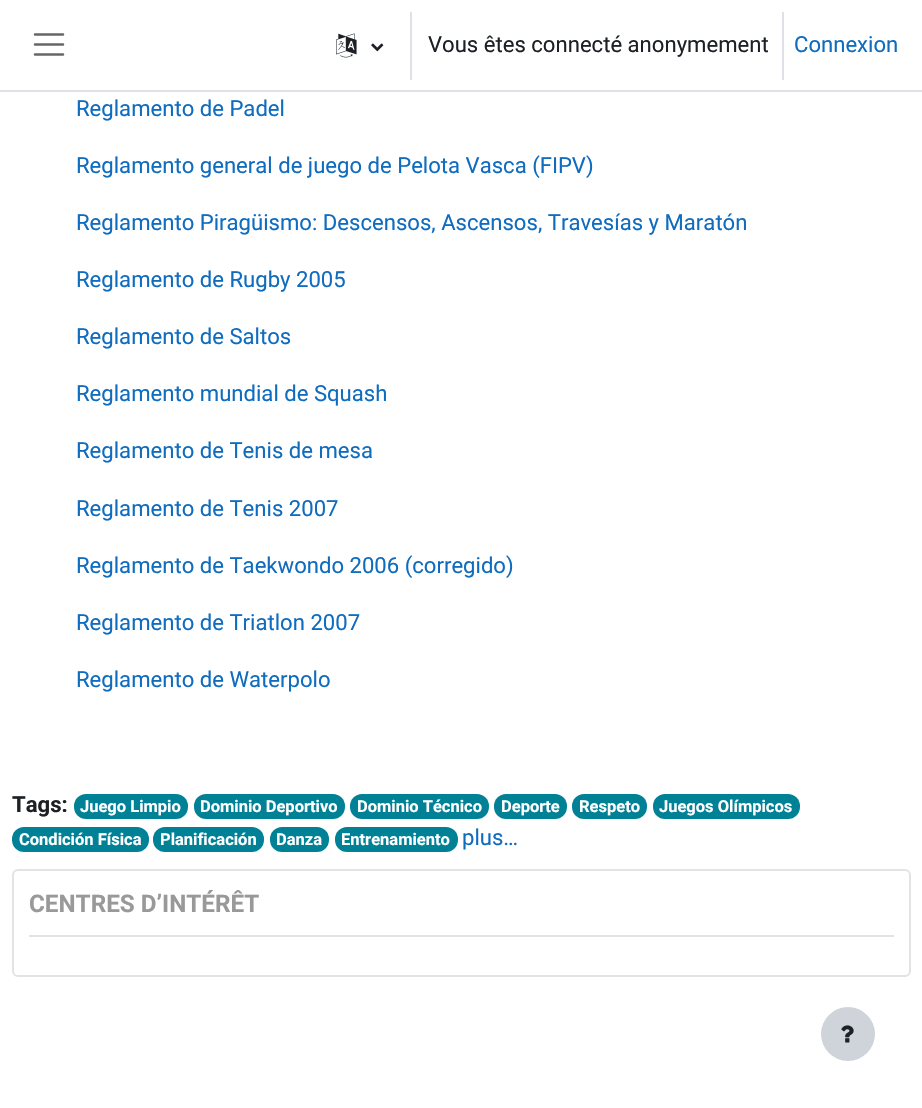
void draw(SkCanvas* c) {
SkPaint p;
p.setAntiAlias(true);
auto F=[&](const char* family, int weight, float size, bool italic = false){SkFontStyle style(weight, SkFontStyle::kNormal_Width,italic ? SkFontStyle::kItalic_Slant : SkFontStyle::kUpright_Slant);SkFont result(fontMgr->matchFamilyStyle(family, style), size);result.setSubpixel(true);return result;};
auto T=[&](const char* s, float x, float y, const SkFont& font){c->drawString(s, x, y, font, p);};
auto R=[&](float x, float y, float w, float h){c->drawRect(SkRect::MakeXYWH(x, y, w, h), p);};
auto Q=[&](float x, float y, float w, float h, float radius){c->drawRoundRect(SkRect::MakeXYWH(x, y, w, h), radius, radius, p);};
auto I=[&](const char* path, float x, float y, float w, float h){auto image = SkImages::DeferredFromEncodedData(SkData::MakeFromFileName(path));c->drawImageRect(image, SkRect::MakeXYWH(x, y, w, h), SkSamplingOptions());};
auto P=[&](const char* data, bool evenOdd = false){SkPath result = *SkParsePath::FromSVGString(data);if (evenOdd) result.setFillType(SkPathFillType::kEvenOdd);return result;};
c->clear(0xffffffff);
p.setColor(0xffdee2e6);
R(0,90,922,2);
p.setStroke(true);
p.setStrokeWidth(2.5);
p.setStrokeCap(SkPaint::kRound_Cap);
p.setColor(0xff666666);
c->drawPath(P("M35 34.5h28m-28 10h28m-28 10h28"),p);
I("1.png",336,33,21,25);
I("2.png",371,43,13,9);
p.setStroke(false);
p.setColor(0xffdee2e6);
R(410,12,2,68);
auto f1 = F("Roboto",400,22.1);
p.setColor(0xff1d2125);
T("Vous êtes connecté anonymement",428,52,f1);
p.setColor(0xffdee2e6);
R(782,12,2,68);
p.setColor(0xff0f6cbf);
T("Connexion",794,52,f1);
T("Reglamento de Padel",76,116,f1);
T("Reglamento general de juego de Pelota Vasca (FIPV)",76,173,f1);
T("Reglamento Piragüismo: Descensos, Ascensos, Travesías y Maratón",76,230,f1);
T("Reglamento de Rugby 2005",76,287,f1);
T("Reglamento de Saltos",76,344,f1);
T("Reglamento mundial de Squash",76,401,f1);
T("Reglamento de Tenis de mesa",76,458,f1);
T("Reglamento de Tenis 2007",76,516,f1);
T("Reglamento de Taekwondo 2006 (corregido)",76,573,f1);
T("Reglamento de Triatlon 2007",76,630,f1);
T("Reglamento de Waterpolo",76,687,f1);
auto f2 = F("Roboto",700,22.1);
p.setColor(0xff1d2125);
T("Tags:",12,812,f2);
p.setColor(0xff008196);
Q(74,794,114,25,12);
auto f3 = F("Roboto",700,16.5);
p.setColor(0xffffffff);
T("Juego Limpio",80,812,f3);
p.setColor(0xff008196);
Q(194,794,151,25,12);
p.setColor(0xffffffff);
T("Dominio Deportivo",200,812,f3);
p.setColor(0xff008196);
Q(350,794,139,25,12);
p.setColor(0xffffffff);
T("Dominio Técnico",357,812,f3);
p.setColor(0xff008196);
Q(494,794,73,25,12);
p.setColor(0xffffffff);
T("Deporte",501,812,f3);
p.setColor(0xff008196);
Q(572,794,75,25,12);
p.setColor(0xffffffff);
T("Respeto",579,812,f3);
p.setColor(0xff008196);
Q(653,794,147,25,12);
p.setColor(0xffffffff);
T("Juegos Olímpicos",659,812,f3);
p.setColor(0xff008196);
Q(12,827,137,25,12);
p.setColor(0xffffffff);
T("Condición Física",19,845,f3);
p.setColor(0xff008196);
Q(153,827,111,25,12);
p.setColor(0xffffffff);
T("Planificación",160,845,f3);
p.setColor(0xff008196);
Q(270,827,59,25,12);
p.setColor(0xffffffff);
T("Danza",276,845,f3);
p.setColor(0xff008196);
Q(335,827,123,25,12);
p.setColor(0xffffffff);
T("Entrenamiento",341,845,f3);
p.setColor(0xff0f6cbf);
T("plus…",462,845,f1);
p.setStroke(true);
p.setStrokeWidth(2);
p.setStrokeCap(SkPaint::kButt_Cap);
p.setColor(0xffe3e3e3);
c->drawRoundRect(SkRect::MakeXYWH(13,870,897,106),5,5,p);
p.setStroke(false);
R(29,935,865,2);
auto f4 = F("Roboto",700,24.25);
p.setColor(0xff999999);
T("CENTRES D’INTÉRÊT",29,912,f4);
p.setColor(0xffced4da);
c->drawCircle(848,1034,27,p);
I("3.png",841,1025,13,18);
}
